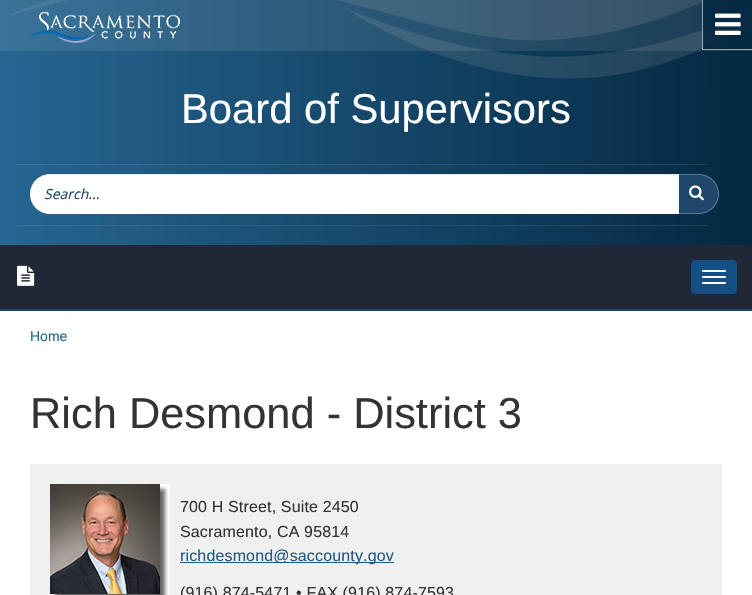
void draw(SkCanvas* c) {
SkPaint p;
p.setAntiAlias(true);
auto F=[&](const char* family, int weight, float size, bool italic = false){SkFontStyle style(weight, SkFontStyle::kNormal_Width,italic ? SkFontStyle::kItalic_Slant : SkFontStyle::kUpright_Slant);SkFont result(fontMgr->matchFamilyStyle(family, style), size);result.setSubpixel(true);return result;};
auto T=[&](const char* s, float x, float y, const SkFont& font){c->drawString(s, x, y, font, p);};
auto L=[&](const char* s, float x, float y, const SkFont& font, const SkPaint& ink, float letter, float word){std::vector<SkGlyphID> glyphs(font.countText(s, strlen(s), SkTextEncoding::kUTF8));std::vector<float> xs(glyphs.size());font.textToGlyphs(s, strlen(s), SkTextEncoding::kUTF8, glyphs);font.getXPos(glyphs, xs, x);float extra = 0;for (size_t i = 0; i < glyphs.size(); i++) {xs[i] += extra;extra += letter + word * (glyphs[i] == font.unicharToGlyph(' '));}c->drawTextBlob(SkTextBlob::MakeFromPosHGlyphs(glyphs, xs, y, font), 0, 0, ink);};
auto R=[&](float x, float y, float w, float h){c->drawRect(SkRect::MakeXYWH(x, y, w, h), p);};
auto Q=[&](float x, float y, float w, float h, float radius){c->drawRoundRect(SkRect::MakeXYWH(x, y, w, h), radius, radius, p);};
auto I=[&](const char* path, float x, float y, float w, float h){auto image = SkImages::DeferredFromEncodedData(SkData::MakeFromFileName(path));c->drawImageRect(image, SkRect::MakeXYWH(x, y, w, h), SkSamplingOptions());};
auto P=[&](const char* data, bool evenOdd = false){SkPath result = *SkParsePath::FromSVGString(data);if (evenOdd) result.setFillType(SkPathFillType::kEvenOdd);return result;};
c->clear(0xffffffff);
{
const SkColor colors[] = {0xff266691,0xff042841};
const float stops[] = {0,1};
const SkPoint ends[] = {{0,122}, {752,121}};
p.setShader(SkGradientShader::MakeLinear(ends, colors, stops, 2, SkTileMode::kClamp));
p.setAlpha(255);
}
R(0,0,752,245);
p.setShader(nullptr);
p.setColor(0x26b7b7b7);
c->drawPath(P("M46-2h29h-11c-9 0-38 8-60 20c0 0 30-11 74-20z"),p);
c->drawPath(P("M328-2c68 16 132 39 194 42c100 4 188-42 188-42z"),p);
c->drawPath(P("M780-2c-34 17-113 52-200 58c-107 8-233-47-233-47c0 0 109 76 237 69c98-5 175-58 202-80z"),p);
p.setColor(0x1adddddd);
R(0,0,752,51);
I("1.png",30,12,150,31);
p.setColor(0xe6042841);
R(702,0,50,50);
p.setColor(0xffa2a5a8);
c->drawPath(P("M752 50h-50l1-1h49z"),p);
p.setColor(0xe6b3b3b3);
c->drawPath(P("M702 50v-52l1 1v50z"),p);
I("2.png",715,13,26,22);
{
const SkColor colors[] = {0xff3c759c,0xff1d3e54};
const float stops[] = {0,1};
const SkPoint ends[] = {{0,122}, {752,121}};
p.setShader(SkGradientShader::MakeLinear(ends, colors, stops, 2, SkTileMode::kClamp));
p.setAlpha(255);
}
R(15,164,692,1);
R(15,225,692,1);
auto f1 = F("Liberation Sans",400,41.75);
p.setShader(nullptr);
p.setColor(0xffffffff);
T("Board of Supervisors",181,123,f1);
c->drawPath(P("M50 174h629v40h-629c-11 0-20-9-20-20c0-11 9-20 20-20z"),p);
p.setColor(0x12000000);
c->drawPath(P("M50 175h629v-1h-629c-11 0-20 9-20 20c0 3 1 5 1 7c-3-11 3-26 19-26z"),p);
auto f2 = F("Open Sans",400,14,true);
p.setColor(0xff1f476a);
T("Search...",44,199,f2);
c->drawPath(P("M679 174h20c11 0 20 9 20 20c0 11-9 20-20 20h-20z"),p);
p.setColor(0x4de1e1e1);
c->drawPath(P("M679 174h20c11 0 20 9 20 20c0 11-9 20-20 20h-20zm0 1h20c10 0 19 9 19 19c0 10-9 19-19 19h-20z",true),p);
I("3.png",689,185,15,16);
p.setColor(0xff202838);
R(0,245,752,64);
p.setColor(0xff1f476a);
R(0,309,752,2);
I("4.png",17,265,18,21);
p.setColor(0xff144f83);
c->drawRoundRect(SkRect::MakeXYWH(691.5,260.5,45,33),3.5,3.5,p);
p.setStroke(true);
p.setStrokeWidth(1);
c->drawRoundRect(SkRect::MakeXYWH(691.5,260.5,45,33),3.5,3.5,p);
p.setStroke(false);
p.setColor(0xffffffff);
Q(702,270,24,2,1);
Q(702,276,24,2,1);
Q(702,282,24,2,1);
auto f3 = F("Liberation Sans",400,14);
p.setColor(0xff266691);
T("Home",30,341,f3);
auto f4 = F("Liberation Sans",400,43.4);
p.setColor(0xff333333);
T("Rich Desmond - District 3",30,428,f4);
p.setColor(0xfff0f0f0);
R(30,464,692,131);
I("5.png",50,484,120,111);
auto f5 = F("Liberation Sans",400,16);
p.setColor(0xff333333);
L("700 H Street, Suite 2450",180,512,f5,p,.15,0);
L("Sacramento, CA 95814",180,537,f5,p,.15,0);
p.setColor(0xff1f5b83);
R(180,562,214,1);
L("richdesmond@saccounty.gov",180,561,f5,p,.15,0);
p.setColor(0xff333333);
L("(916) 874-5471 • FAX (916) 874-7593",180,598,f5,p,.15,0);
}
